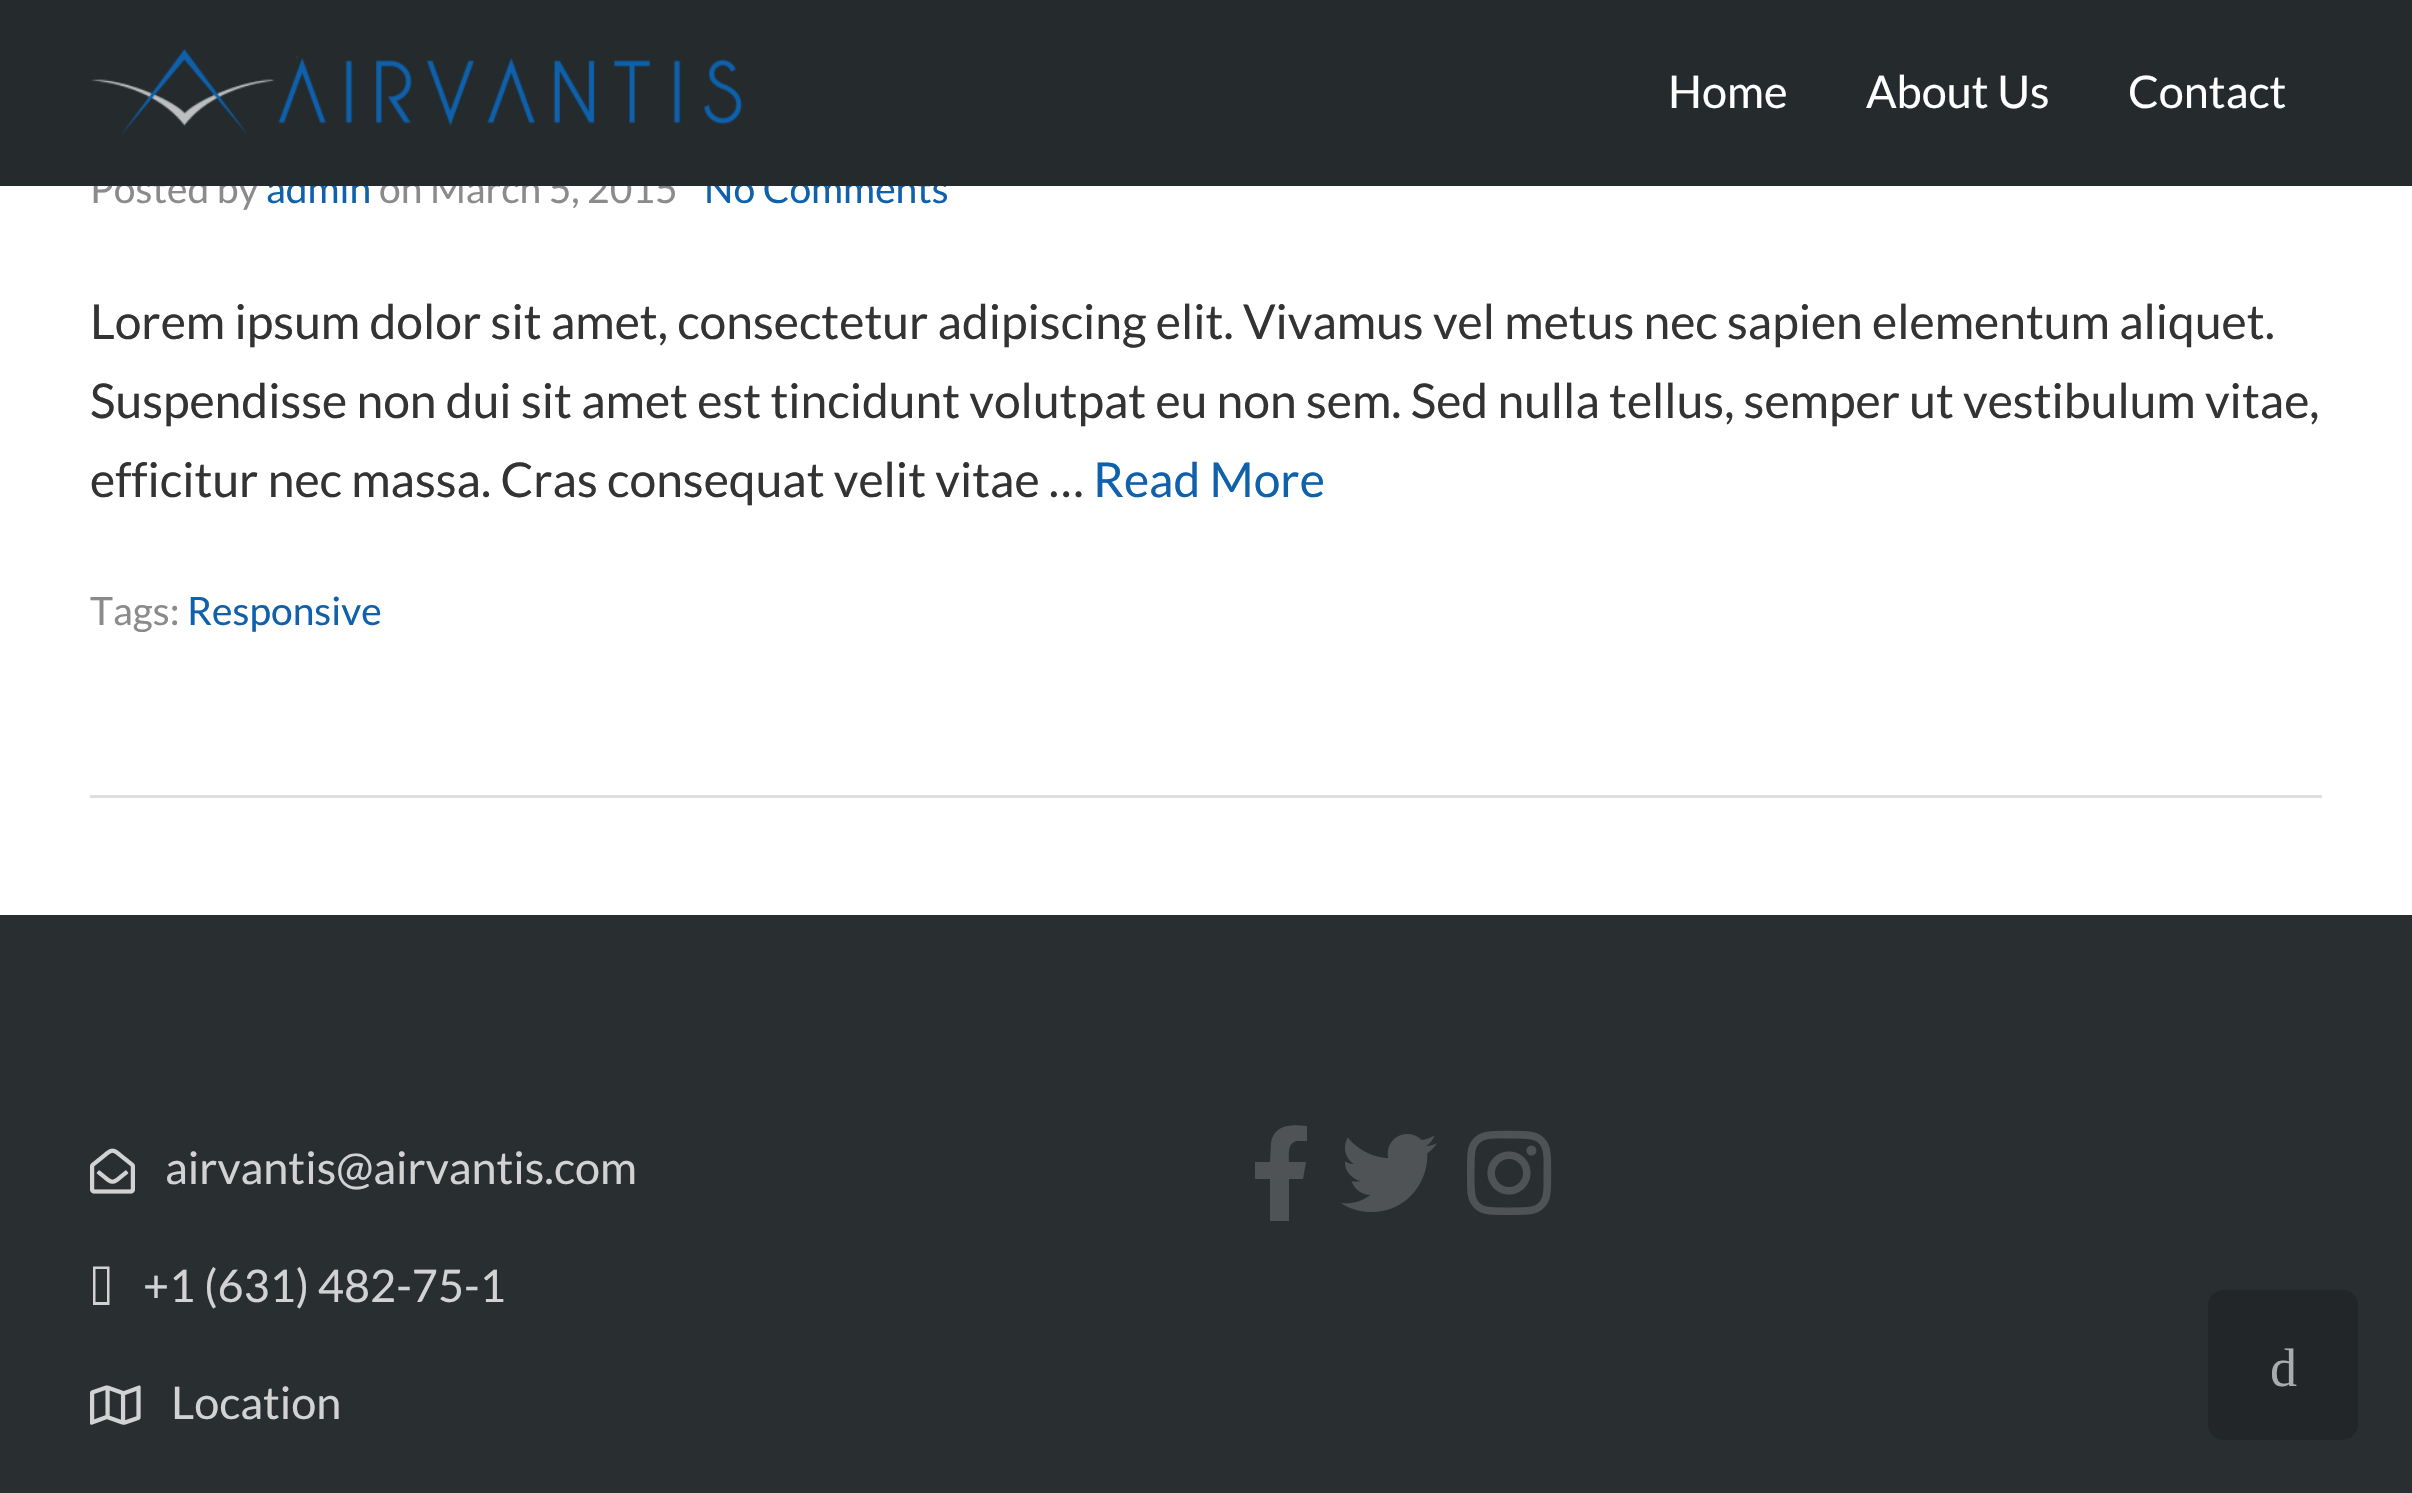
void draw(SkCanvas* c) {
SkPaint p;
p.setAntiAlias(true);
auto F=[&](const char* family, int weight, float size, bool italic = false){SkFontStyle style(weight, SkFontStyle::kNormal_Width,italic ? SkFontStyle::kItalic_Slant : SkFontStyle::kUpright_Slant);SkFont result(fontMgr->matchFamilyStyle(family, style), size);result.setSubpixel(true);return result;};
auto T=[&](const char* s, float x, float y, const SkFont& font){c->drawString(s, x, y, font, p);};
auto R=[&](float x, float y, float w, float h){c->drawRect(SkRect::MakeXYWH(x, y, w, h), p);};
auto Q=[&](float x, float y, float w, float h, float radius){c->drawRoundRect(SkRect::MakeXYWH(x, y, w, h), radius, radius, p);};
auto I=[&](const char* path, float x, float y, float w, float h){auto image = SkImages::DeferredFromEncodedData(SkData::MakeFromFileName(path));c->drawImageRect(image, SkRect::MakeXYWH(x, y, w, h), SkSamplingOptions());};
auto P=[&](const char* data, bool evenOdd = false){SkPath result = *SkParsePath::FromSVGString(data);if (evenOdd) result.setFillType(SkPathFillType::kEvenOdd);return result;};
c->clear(0xffffffff);
auto f1 = F("Lato",400,39);
p.setColor(0xff8b8b8b);
T("Posted by",90,203,f1);
p.setColor(0xff0f61ac);
T("admin",266,203,f1);
p.setColor(0xff8b8b8b);
T("on March 5, 2015",379,203,f1);
p.setColor(0xff0f61ac);
T("No Comments",704,203,f1);
p.setColor(0xff252b2d);
R(0,0,2412,186);
I("1.png",91,49,652,85);
auto f2 = F("Lato",400,45);
p.setColor(0xffffffff);
T("Home",1668,108,f2);
T("About Us",1866,108,f2);
T("Contact",2128,108,f2);
p.setColor(0xffdedede);
R(90,795,2232,3);
auto f3 = F("Lato",400,48);
p.setColor(0xff333333);
T("Lorem ipsum dolor sit amet, consectetur adipiscing elit. Vivamus vel metus nec sapien elementum aliquet.",90,339,f3);
T("Suspendisse non dui sit amet est tincidunt volutpat eu non sem. Sed nulla tellus, semper ut vestibulum vitae,",90,418,f3);
T("efficitur nec massa. Cras consequat velit vitae …",90,497,f3);
p.setColor(0xff0f61ac);
T("Read More",1093,497,f3);
p.setColor(0xff8b8b8b);
T("Tags:",90,625,f1);
p.setColor(0xff0f61ac);
T("Responsive",187,625,f1);
p.setColor(0xff292e31);
R(0,915,2412,578);
I("2.png",90,1148,45,46);
p.setColor(0xffd2d2d2);
T("airvantis@airvantis.com",165,1184,f2);
c->drawPath(P("M95.5 1302h11.5v-33h-11.5zm-2.5 3v-38.5h16.5v38.5z"),p);
T("+1 (631) 482-75-1",143,1302,f2);
I("3.png",90,1385,51,40);
T("Location",171,1419,f2);
p.setColor(0xff4f5356);
c->drawPath(P("M1303 1179h-14v42h-19v-42h-15v-17h15l1-19c3-19 21-19 36-17v15h-10c-10 2-8 14-8 21h17z"),p);
I("4.png",1341,1134,96,78);
I("5.png",1467,1130,85,85);
p.setColor(0xff222628);
Q(2208,1290,150,150,15);
auto f4 = F("Liberation Serif",400,54);
p.setColor(0xffa9abad);
T("d",2270,1386,f4);
}
